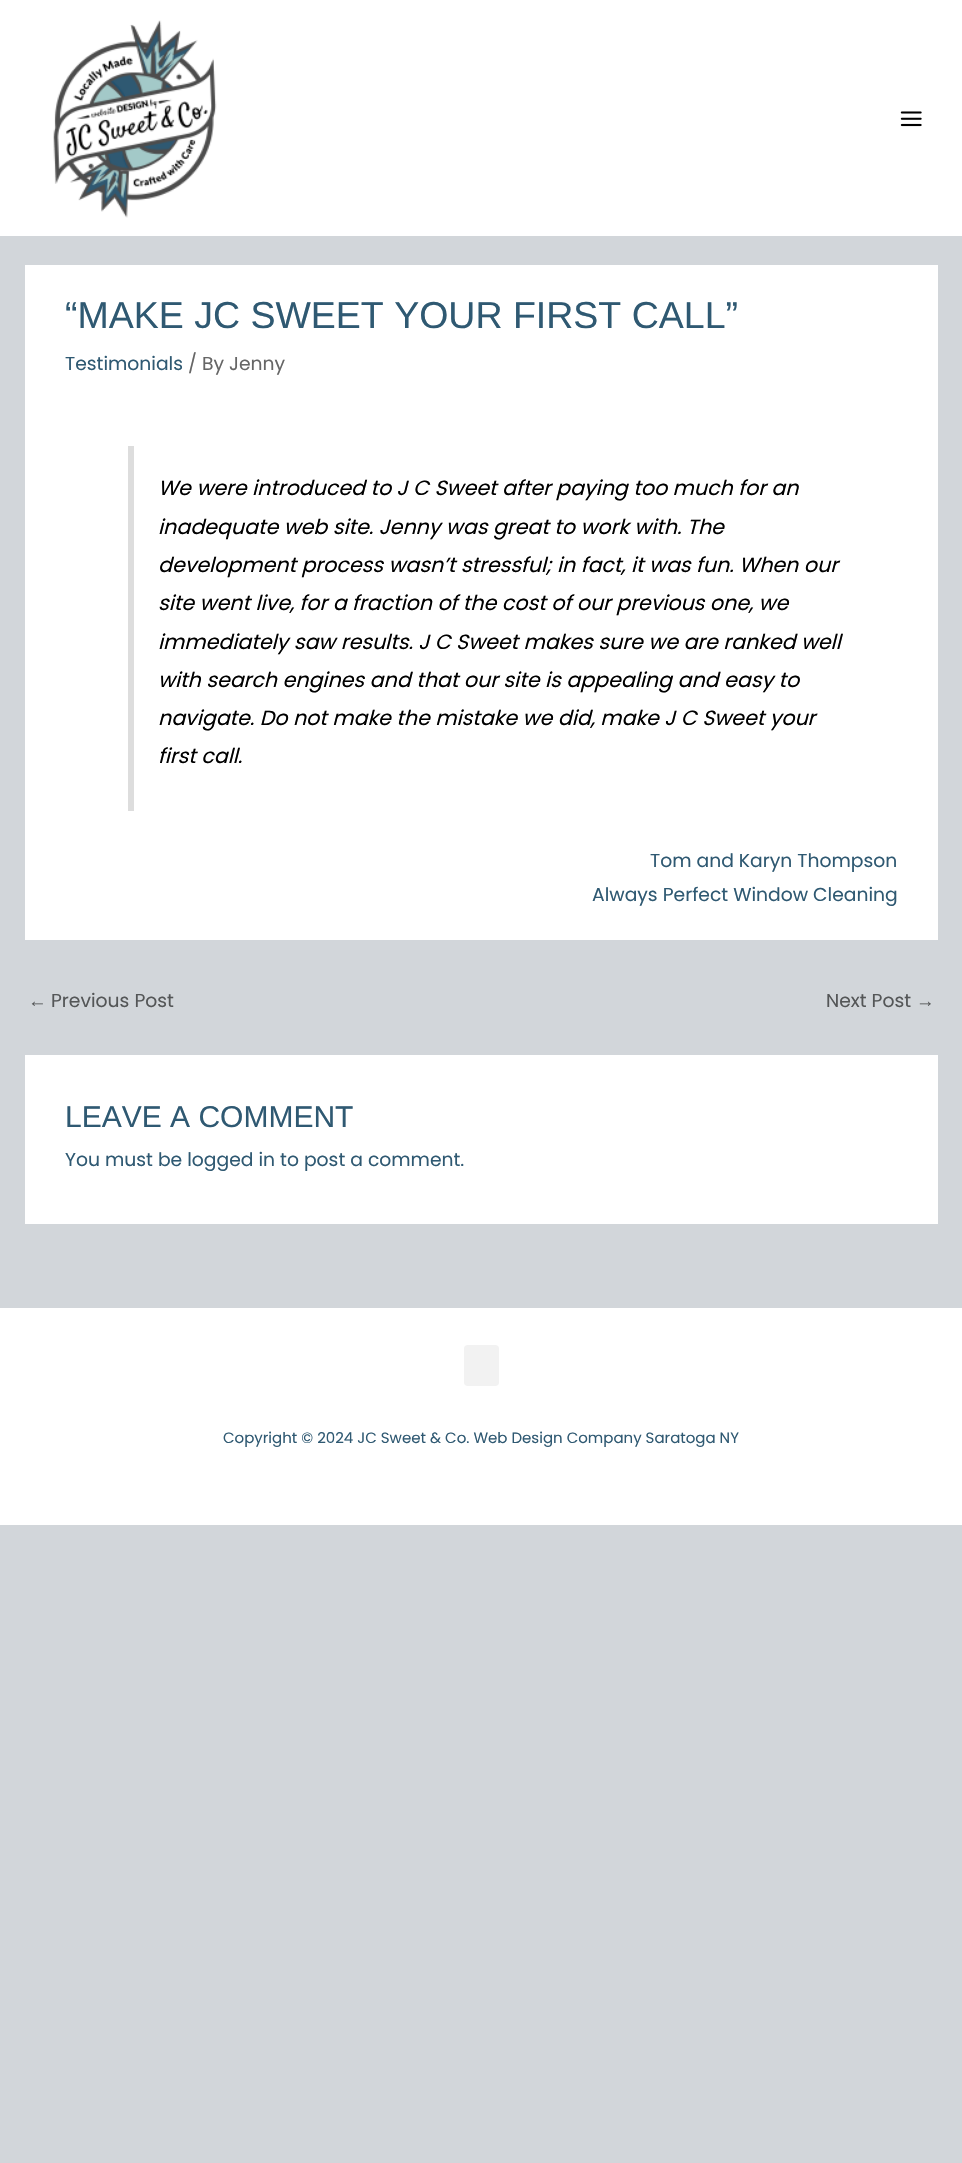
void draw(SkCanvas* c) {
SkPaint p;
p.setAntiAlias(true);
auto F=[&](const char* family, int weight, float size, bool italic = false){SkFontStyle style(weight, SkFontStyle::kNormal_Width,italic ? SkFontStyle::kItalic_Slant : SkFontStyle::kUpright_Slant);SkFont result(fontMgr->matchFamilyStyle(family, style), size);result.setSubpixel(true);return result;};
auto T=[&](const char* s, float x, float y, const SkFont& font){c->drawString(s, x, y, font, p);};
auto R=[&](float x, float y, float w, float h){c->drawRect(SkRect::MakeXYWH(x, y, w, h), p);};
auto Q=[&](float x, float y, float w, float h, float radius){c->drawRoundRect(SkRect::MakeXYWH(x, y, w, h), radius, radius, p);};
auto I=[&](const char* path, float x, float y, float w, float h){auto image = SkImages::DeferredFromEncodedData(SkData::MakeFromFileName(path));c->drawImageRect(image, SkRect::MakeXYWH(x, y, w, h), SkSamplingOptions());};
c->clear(0xffd2d6da);
p.setColor(0xffffffff);
R(0,0,962,236);
I("1.png",53,20,164,198);
I("2.png",900,111,22,16);
R(25,265,913,675);
auto f1 = F("Liberation Sans",400,37.5);
p.setColor(0xff2f5972);
T("“MAKE JC SWEET YOUR FIRST CALL”",65,328,f1);
auto f2 = F("Poppins",400,18.75);
T("Testimonials",65,370,f2);
p.setColor(0xff666666);
T("/ By Jenny",188,370,f2);
p.setColor(0xffdddddd);
R(128,446,6,365);
auto f3 = F("Poppins",400,20.6,true);
p.setColor(0xff000000);
T("We were introduced to J C Sweet after paying too much for an",158,495,f3);
T("inadequate web site. Jenny was great to work with. The",158,534,f3);
T("development process wasn’t stressful; in fact, it was fun. When our",158,572,f3);
T("site went live, for a fraction of the cost of our previous one, we",158,610,f3);
T("immediately saw results. J C Sweet makes sure we are ranked well",158,649,f3);
T("with search engines and that our site is appealing and easy to",158,687,f3);
T("navigate. Do not make the mistake we did, make J C Sweet your",158,725,f3);
T("first call.",158,763,f3);
p.setColor(0xff2f5972);
T("Tom and Karyn Thompson",650,867,f2);
T("Always Perfect Window Cleaning",592,901,f2);
auto f4 = F("Liberation Sans",400,18.75);
p.setColor(0xff545657);
T("←",28,1007,f4);
T("Previous Post",51,1007,f2);
T("Next Post",826,1007,f2);
T("→",916,1007,f4);
p.setColor(0xffffffff);
R(25,1055,913,169);
auto f5 = F("Liberation Sans",400,30);
p.setColor(0xff2f5972);
T("LEAVE A COMMENT",65,1127,f5);
T("You must be logged in to post a comment.",65,1166,f2);
p.setColor(0xffffffff);
R(0,1308,962,217);
p.setColor(0xfff2f2f2);
Q(464,1345,35,41,4);
auto f6 = F("Poppins",400,15);
p.setColor(0xff2f5972);
T("Copyright © 2024 JC Sweet & Co. Web Design Company Saratoga NY",223,1443,f6);
}
